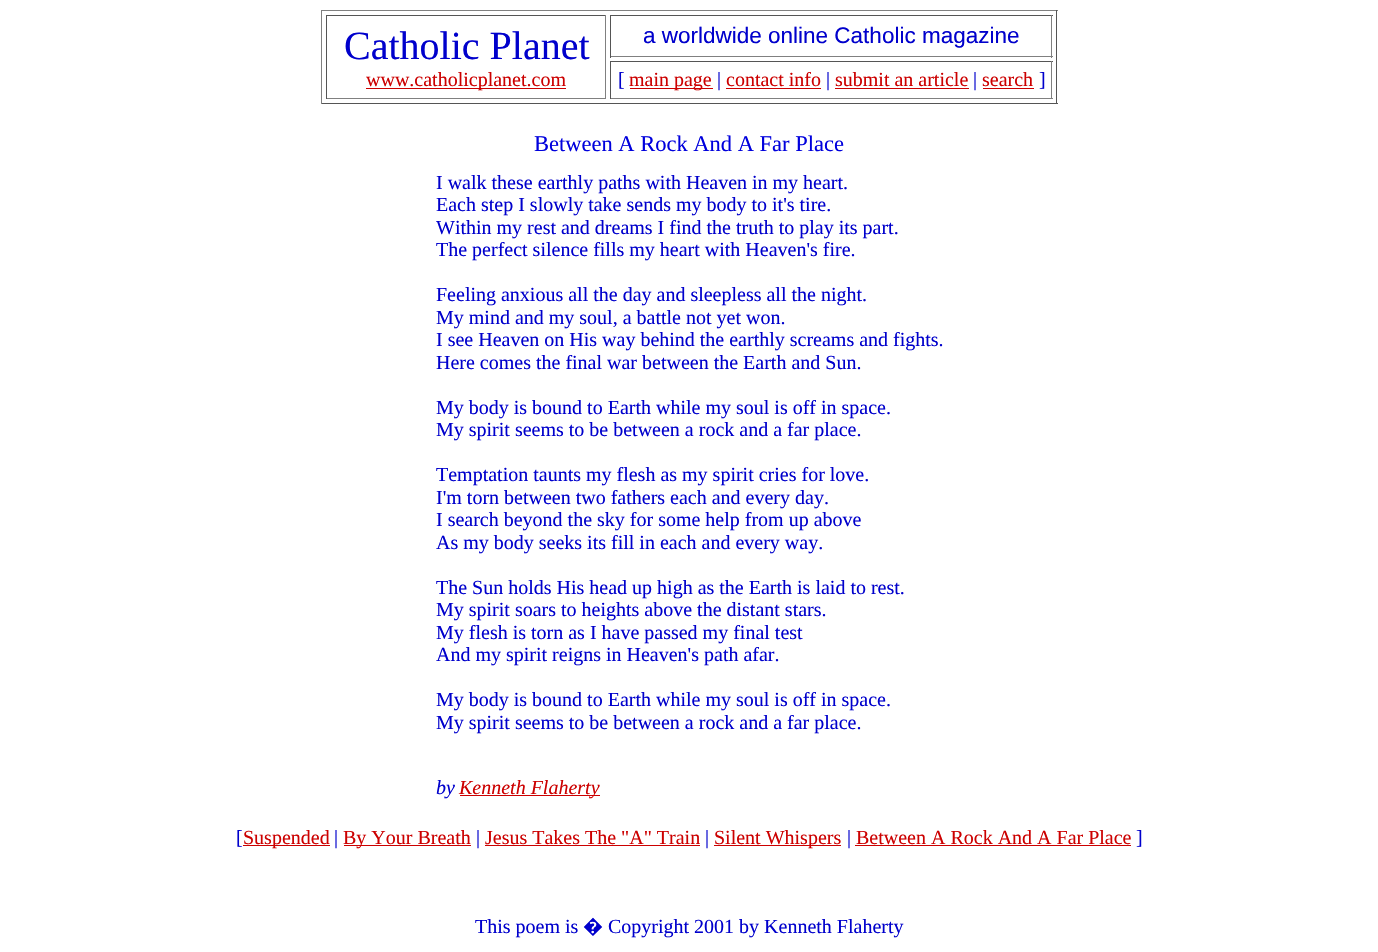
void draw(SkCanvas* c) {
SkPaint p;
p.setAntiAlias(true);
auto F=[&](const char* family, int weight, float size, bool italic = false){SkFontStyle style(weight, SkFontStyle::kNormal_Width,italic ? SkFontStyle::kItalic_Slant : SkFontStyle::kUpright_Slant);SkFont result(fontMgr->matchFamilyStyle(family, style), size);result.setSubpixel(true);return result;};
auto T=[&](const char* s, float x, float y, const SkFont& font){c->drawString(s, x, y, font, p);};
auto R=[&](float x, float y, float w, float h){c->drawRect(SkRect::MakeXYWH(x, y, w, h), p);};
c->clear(0xffffffff);
p.setColor(0xff808080);
R(321,10,737,1);
p.setColor(0xff555555);
R(1056,10,1,94);
R(321,103,737,1);
p.setColor(0xff808080);
R(321,10,1,94);
p.setColor(0xff555555);
R(326,15,280,1);
p.setColor(0xff808080);
R(605,15,1,84);
R(326,98,280,1);
p.setColor(0xff555555);
R(326,15,1,84);
auto f1 = F("Liberation Serif",400,40);
p.setColor(0xff0000cc);
T("Catholic Planet",344,59,f1);
p.setColor(0xffcc0000);
R(366,88,200,1);
auto f2 = F("Liberation Serif",400,20);
T("www.catholicplanet.com",366,86,f2);
p.setColor(0xff555555);
R(610,15,443,1);
p.setColor(0xff808080);
R(1051,15,1,43);
R(610,56,443,1);
p.setColor(0xff555555);
R(610,15,1,43);
auto f3 = F("Liberation Sans",400,22.5);
p.setColor(0xff0000cc);
T("a worldwide online Catholic magazine",643,43,f3);
p.setColor(0xff555555);
R(610,61,443,1);
p.setColor(0xff808080);
R(1051,61,1,38);
R(610,98,443,1);
p.setColor(0xff555555);
R(610,61,1,38);
p.setColor(0xff0000cc);
T("[",618,86,f2);
p.setColor(0xffcc0000);
R(630,88,83,1);
T("main page",629,86,f2);
p.setColor(0xff0000cc);
T("|",717,86,f2);
p.setColor(0xffcc0000);
T("contact info",726,86,f2);
R(726,88,95,1);
p.setColor(0xff0000cc);
T("|",826,86,f2);
p.setColor(0xffcc0000);
T("submit an article",835,86,f2);
R(835,88,134,1);
p.setColor(0xff0000cc);
T("|",973,86,f2);
p.setColor(0xffcc0000);
T("search",982,86,f2);
R(983,88,51,1);
p.setColor(0xff0000cc);
T("]",1039,86,f2);
auto f4 = F("Liberation Serif",400,22.5);
p.setColor(0xff0000dd);
T("Between A Rock And A Far Place",534,151,f4);
p.setColor(0xff0000cc);
T("I walk these earthly paths with Heaven in my heart.",436,189,f2);
T("Each step I slowly take sends my body to it's tire.",436,211,f2);
T("Within my rest and dreams I find the truth to play its part.",436,234,f2);
T("The perfect silence fills my heart with Heaven's fire.",436,256,f2);
T("Feeling anxious all the day and sleepless all the night.",436,301,f2);
T("My mind and my soul, a battle not yet won.",436,324,f2);
T("I see Heaven on His way behind the earthly screams and fights.",436,346,f2);
T("Here comes the final war between the Earth and Sun.",436,369,f2);
T("My body is bound to Earth while my soul is off in space.",436,414,f2);
T("My spirit seems to be between a rock and a far place.",436,436,f2);
T("Temptation taunts my flesh as my spirit cries for love.",436,481,f2);
T("I'm torn between two fathers each and every day.",436,504,f2);
T("I search beyond the sky for some help from up above",436,526,f2);
T("As my body seeks its fill in each and every way.",436,549,f2);
T("The Sun holds His head up high as the Earth is laid to rest.",436,594,f2);
T("My spirit soars to heights above the distant stars.",436,616,f2);
T("My flesh is torn as I have passed my final test",436,639,f2);
T("And my spirit reigns in Heaven's path afar.",436,661,f2);
T("My body is bound to Earth while my soul is off in space.",436,706,f2);
T("My spirit seems to be between a rock and a far place.",436,729,f2);
auto f5 = F("Liberation Serif",400,20,true);
T("by",436,794,f5);
p.setColor(0xffcc0000);
R(460,795,140,1);
T("Kenneth Flaherty",459,794,f5);
p.setColor(0xff0000cc);
T("[",236,844,f2);
p.setColor(0xffcc0000);
R(243,845,87,1);
T("Suspended",243,844,f2);
p.setColor(0xff0000cc);
T("|",334,844,f2);
p.setColor(0xffcc0000);
R(344,845,127,1);
T("By Your Breath",343,844,f2);
p.setColor(0xff0000cc);
T("|",476,844,f2);
p.setColor(0xffcc0000);
T("Jesus Takes The \"A\" Train",485,844,f2);
R(485,845,215,1);
p.setColor(0xff0000cc);
T("|",705,844,f2);
p.setColor(0xffcc0000);
R(714,845,127,1);
T("Silent Whispers",714,844,f2);
p.setColor(0xff0000cc);
T("|",847,844,f2);
p.setColor(0xffcc0000);
T("Between A Rock And A Far Place",856,844,f2);
R(855,845,276,1);
p.setColor(0xff0000cc);
T("]",1136,844,f2);
T("This poem is",475,933,f2);
auto f6 = F("Noto Sans",400,20);
T("�",583,933,f6);
T("Copyright 2001 by Kenneth Flaherty",608,933,f2);
}
